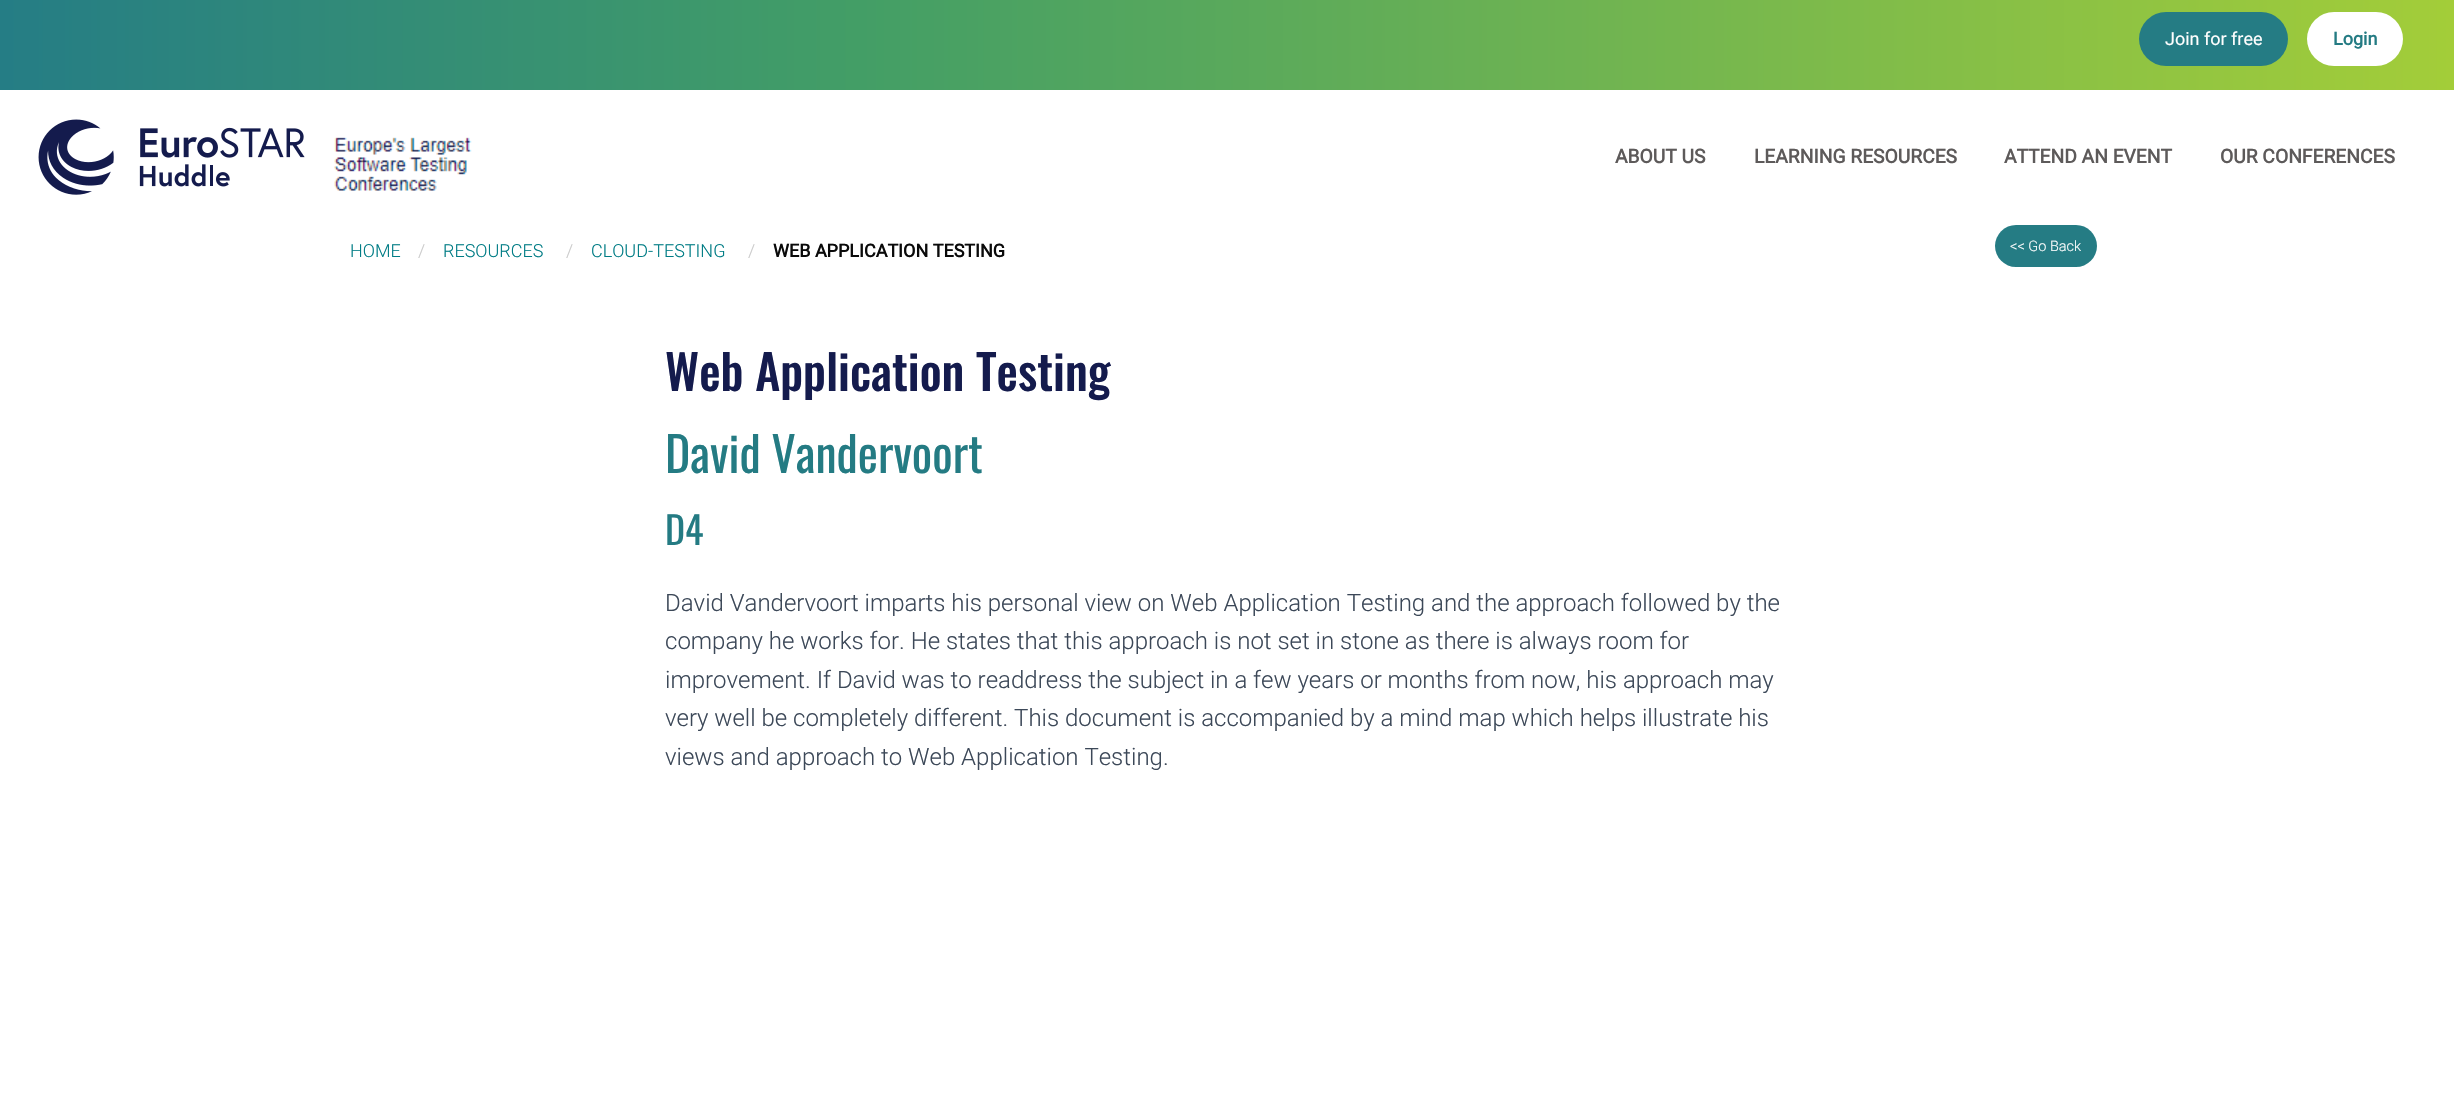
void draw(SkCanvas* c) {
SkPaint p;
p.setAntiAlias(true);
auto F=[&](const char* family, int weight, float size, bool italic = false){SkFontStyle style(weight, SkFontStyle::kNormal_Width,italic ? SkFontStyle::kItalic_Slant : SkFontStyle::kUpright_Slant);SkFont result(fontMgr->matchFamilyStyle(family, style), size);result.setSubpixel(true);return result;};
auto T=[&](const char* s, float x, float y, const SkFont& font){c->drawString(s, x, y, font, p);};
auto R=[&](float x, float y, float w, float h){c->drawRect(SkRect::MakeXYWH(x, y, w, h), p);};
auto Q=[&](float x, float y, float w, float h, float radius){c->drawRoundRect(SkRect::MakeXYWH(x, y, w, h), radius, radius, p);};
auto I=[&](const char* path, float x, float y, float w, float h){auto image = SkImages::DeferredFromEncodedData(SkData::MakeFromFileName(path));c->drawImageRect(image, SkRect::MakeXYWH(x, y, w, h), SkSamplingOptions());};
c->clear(0xffffffff);
{
const SkColor colors[] = {0xff257d85,0xff439e66,0xffa3cd39};
const float stops[] = {0,.35,1};
const SkPoint ends[] = {{0,45}, {2454,45}};
p.setShader(SkGradientShader::MakeLinear(ends, colors, stops, 3, SkTileMode::kClamp));
p.setAlpha(255);
}
R(0,0,2454,90);
p.setShader(nullptr);
p.setColor(0xff257c84);
Q(2139,12,149,54,27);
auto f1 = F("Roboto",400,18);
p.setColor(0xfffefefe);
T("Join for free",2165,45,f1);
p.setColor(0xffffffff);
Q(2307,12,96,54,27);
auto f2 = F("Roboto",700,18);
p.setColor(0xff247b83);
T("Login",2333,45,f2);
I("1.png",38,119,267,76);
I("2.png",334,137,138,54);
auto f3 = F("Roboto",700,19.25);
p.setColor(0xff5d5a5a);
T("ABOUT US",1615,163,f3);
T("LEARNING RESOURCES",1754,163,f3);
T("ATTEND AN EVENT",2004,163,f3);
T("OUR CONFERENCES",2220,163,f3);
auto f4 = F("Roboto",300,18);
p.setColor(0xff007c85);
T("HOME",350,257,f4);
p.setColor(0xffcacaca);
T("/",418,257,f4);
p.setColor(0xff007c85);
T("RESOURCES",443,257,f4);
p.setColor(0xffcacaca);
T("/",566,257,f4);
p.setColor(0xff007c85);
T("CLOUD-TESTING",591,257,f4);
p.setColor(0xffcacaca);
T("/",748,257,f4);
p.setColor(0xff0a0a0a);
T("WEB APPLICATION TESTING",773,257,f2);
p.setColor(0xff257c84);
Q(1995,225,102,42,21);
auto f5 = F("Roboto",300,14.5);
p.setColor(0xfffefefe);
T("<< Go Back",2010,251,f5);
auto f6 = F("Oswald",500,48);
p.setColor(0xff141b4d);
T("Web Application Testing",665,391,f6);
auto f7 = F("Oswald",400,48);
p.setColor(0xff247b83);
T("David Vandervoort",665,473,f7);
auto f8 = F("Oswald",400,38);
T("D4",665,545,f8);
auto f9 = F("Roboto",300,24);
p.setColor(0xff3c4858);
T("David Vandervoort imparts his personal view on Web Application Testing and the approach followed by the",665,611,f9);
T("company he works for. He states that this approach is not set in stone as there is always room for",665,649,f9);
T("improvement. If David was to readdress the subject in a few years or months from now, his approach may",665,688,f9);
T("very well be completely different. This document is accompanied by a mind map which helps illustrate his",665,726,f9);
T("views and approach to Web Application Testing.",665,765,f9);
}
